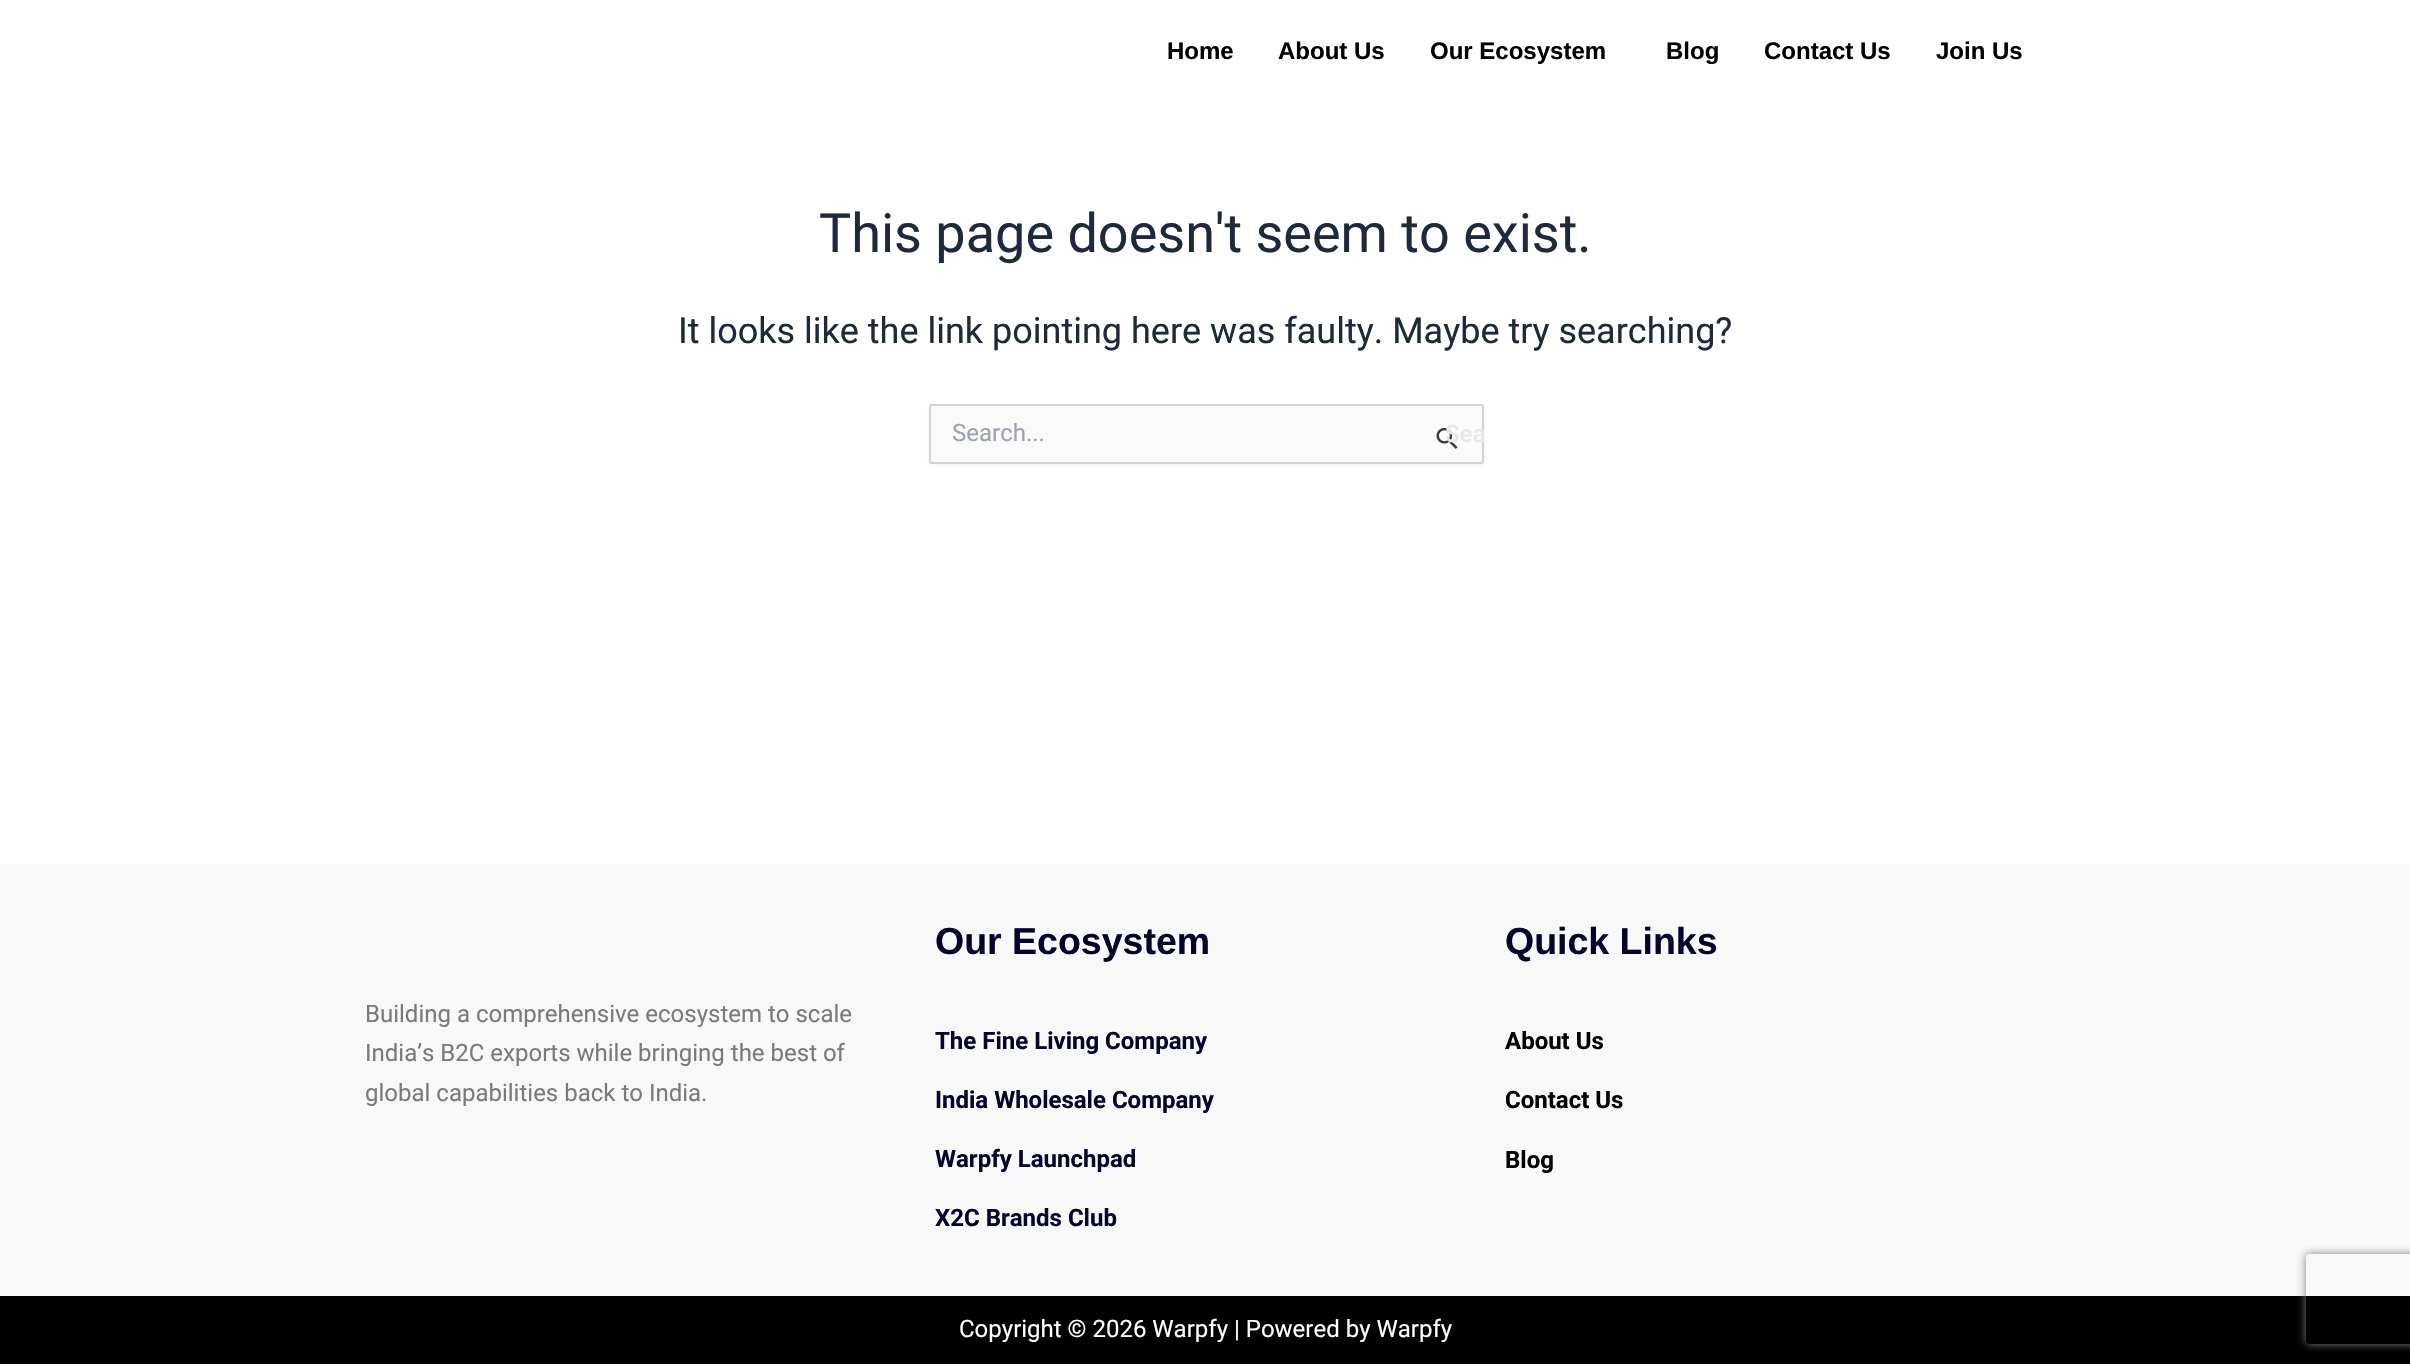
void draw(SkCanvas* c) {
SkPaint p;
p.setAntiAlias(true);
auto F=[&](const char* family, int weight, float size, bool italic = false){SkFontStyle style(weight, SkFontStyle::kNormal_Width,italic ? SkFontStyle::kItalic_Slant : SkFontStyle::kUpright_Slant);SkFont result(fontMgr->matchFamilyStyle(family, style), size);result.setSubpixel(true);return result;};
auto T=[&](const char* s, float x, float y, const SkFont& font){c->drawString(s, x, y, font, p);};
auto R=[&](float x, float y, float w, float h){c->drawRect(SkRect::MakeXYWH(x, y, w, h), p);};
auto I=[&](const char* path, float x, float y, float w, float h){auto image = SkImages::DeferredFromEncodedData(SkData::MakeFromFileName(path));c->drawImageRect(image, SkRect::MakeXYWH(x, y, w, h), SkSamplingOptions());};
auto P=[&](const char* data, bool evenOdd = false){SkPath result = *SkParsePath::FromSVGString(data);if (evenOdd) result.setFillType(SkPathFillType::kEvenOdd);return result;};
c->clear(0xffffffff);
auto f1 = F("Liberation Sans",700,24);
p.setColor(0xff000000);
T("Home",1167,59,f1);
T("About Us",1278,59,f1);
T("Our Ecosystem",1430,59,f1);
T("Blog",1666,59,f1);
T("Contact Us",1764,59,f1);
T("Join Us",1936,59,f1);
auto f2 = F("Roboto",400,54);
p.setColor(0xff1e293b);
T("This page doesn't seem to exist.",819,252,f2);
auto f3 = F("Roboto",400,36);
T("It looks like the link pointing here was faulty. Maybe try searching?",678,343,f3);
p.setColor(0x0d000000);
p.setMaskFilter(SkMaskFilter::MakeBlur(kNormal_SkBlurStyle, 1.5));
c->drawRoundRect(SkRect::MakeXYWH(929,405,555,60),3,3,p);
p.setMaskFilter(nullptr);
p.setColor(0xfffafafa);
c->drawRoundRect(SkRect::MakeXYWH(930,405,553,58),2,2,p);
p.setStroke(true);
p.setStrokeWidth(2);
p.setColor(0xffd1d5db);
c->drawRoundRect(SkRect::MakeXYWH(930,405,553,58),2,2,p);
auto f4 = F("Roboto",400,24);
p.setStroke(false);
p.setColor(0xff9ca3af);
T("Search...",952,441,f4);
I("1.png",1436,428,22,21);
c->save();
c->clipPath(P("M1419 404h62c1.5 0 3 1.5 3 3v57c0 1.5-1.5 3-3 3h-62c-1.5 0-3-1.5-3-3v-57c0-1.5 1.5-3 3-3z"),true);
auto f5 = F("Roboto",500,24);
p.setColor(0xffe8e8e9);
T("Sea",1445,442,f5);
c->restore();
p.setColor(0xfff8f8f8);
R(0,864,2410,432);
p.setColor(0xff7a7a7a);
T("Building a comprehensive ecosystem to scale",365,1022,f4);
T("India’s B2C exports while bringing the best of",365,1061,f4);
T("global capabilities back to India.",365,1101,f4);
auto f6 = F("Liberation Sans",700,37.5);
p.setColor(0xff04042c);
T("Our Ecosystem",935,954,f6);
auto f7 = F("Roboto",700,24);
T("The Fine Living Company",935,1049,f7);
T("India Wholesale Company",935,1108,f7);
T("Warpfy Launchpad",935,1167,f7);
T("X2C Brands Club",935,1226,f7);
T("Quick Links",1505,954,f6);
p.setColor(0xff000000);
T("About Us",1505,1049,f7);
T("Contact Us",1505,1108,f7);
T("Blog",1505,1168,f7);
R(0,1296,2410,68);
p.setColor(0xffffffff);
T("Copyright © 2026 Warpfy | Powered by Warpfy",959,1337,f4);
c->save();
c->clipPath(P("M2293 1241h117v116h-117zm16 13h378c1.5 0 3 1.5 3 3v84c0 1.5-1.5 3-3 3h-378c-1.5 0-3-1.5-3-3v-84c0-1.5 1.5-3 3-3z",true),true);
p.setColor(0xff808080);
p.setMaskFilter(SkMaskFilter::MakeBlur(kNormal_SkBlurStyle, 4));
c->drawRoundRect(SkRect::MakeXYWH(2306,1254,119,90),3,3,p);
p.setMaskFilter(nullptr);
c->restore();
}
